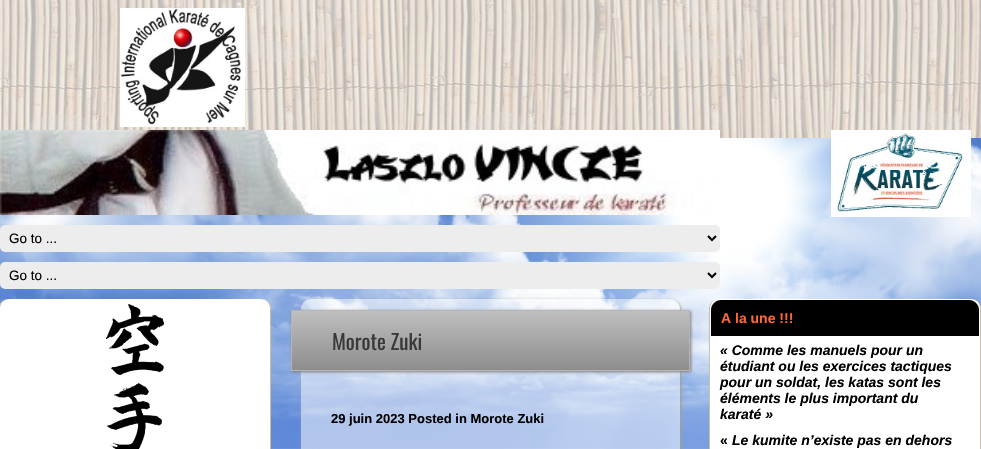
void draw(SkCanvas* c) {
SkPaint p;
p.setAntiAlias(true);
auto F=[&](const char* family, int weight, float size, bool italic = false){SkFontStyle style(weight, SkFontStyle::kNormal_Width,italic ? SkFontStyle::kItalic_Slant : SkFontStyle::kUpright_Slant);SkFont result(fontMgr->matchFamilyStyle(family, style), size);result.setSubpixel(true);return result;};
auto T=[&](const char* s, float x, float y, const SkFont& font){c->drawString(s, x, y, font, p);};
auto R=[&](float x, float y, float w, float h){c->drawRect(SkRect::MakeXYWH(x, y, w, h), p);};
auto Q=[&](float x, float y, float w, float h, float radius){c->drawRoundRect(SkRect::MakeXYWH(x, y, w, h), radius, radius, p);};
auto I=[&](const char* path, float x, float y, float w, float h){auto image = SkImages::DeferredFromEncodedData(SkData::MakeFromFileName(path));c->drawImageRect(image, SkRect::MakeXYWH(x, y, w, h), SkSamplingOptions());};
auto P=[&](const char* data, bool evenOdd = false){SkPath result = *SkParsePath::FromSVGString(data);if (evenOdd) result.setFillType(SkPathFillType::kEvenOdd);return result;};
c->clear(0xffffffff);
I("1.png",0,138,981,311);
I("2.png",0,0,981,138);
I("3.png",120,8,125,119);
I("4.png",831,130,140,87);
I("5.png",0,130,720,85);
p.setColor(0xffededed);
Q(0,225,720,27,5);
p.setStroke(true);
p.setStrokeWidth(2);
p.setColor(0xff000000);
c->drawPath(P("M708 236l4 4l4-4"),p);
auto f1 = F("Liberation Sans",400,13.5);
p.setStroke(false);
T("Go to ...",9,243,f1);
p.setColor(0xffededed);
Q(0,262,720,27,5);
p.setStroke(true);
p.setColor(0xff000000);
c->drawPath(P("M708 273l4 4l4-4"),p);
p.setStroke(false);
T("Go to ...",9,280,f1);
p.setColor(0xffffffff);
Q(-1,299,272,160,10);
p.setColor(0xffc7c1a6);
c->drawPath(P("M9 299h252c6 0 10 4 10 10v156c0 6-4 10-10 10h-252c-6 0-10-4-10-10v-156c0-6 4-10 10-10zm0 0h252c5 0 9 4 9 10v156c0 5-4 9-9 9h-252c-5 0-9-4-9-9v-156c0-6 4-10 9-10z",true),p);
I("6.png",106,304,58,145);
c->save();
c->clipPath(P("M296 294h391v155h-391zm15 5h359c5.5 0 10 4.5 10 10v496h-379v-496c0-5.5 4.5-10 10-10z",true),true);
p.setColor(0xffa7a086);
p.setMaskFilter(SkMaskFilter::MakeBlur(kNormal_SkBlurStyle, 1.5));
c->drawRoundRect(SkRect::MakeXYWH(302,300,379,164),10,10,p);
p.setMaskFilter(nullptr);
c->restore();
p.setColor(0x80ffffff);
c->drawPath(P("M311 299h359c5.5 0 10 4.5 10 10v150h-379v-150c0-5.5 4.5-10 10-10z"),p);
p.setColor(0xff7b7878);
p.setMaskFilter(SkMaskFilter::MakeBlur(kNormal_SkBlurStyle, 1.5));
c->drawRect(SkRect::MakeXYWH(292,311,399,61),p);
p.setMaskFilter(nullptr);
{
const SkColor colors[] = {0xffbfbfbf,0xff8d8d8d};
const float stops[] = {0,1};
const SkPoint ends[] = {{491,311}, {491,370}};
p.setShader(SkGradientShader::MakeLinear(ends, colors, stops, 2, SkTileMode::kClamp));
p.setAlpha(255);
}
R(292,311,397,59);
p.setStroke(true);
p.setStrokeWidth(1);
p.setShader(nullptr);
p.setColor(0xffb5b5b5);
c->drawRect(SkRect::MakeXYWH(291.5,310.5,398,60),p);
auto f2 = F("Oswald",400,21);
p.setStroke(false);
p.setColor(0xff393939);
T("Morote Zuki",332,350,f2);
auto f3 = F("Liberation Sans",700,13);
p.setColor(0xff000000);
T("29 juin 2023 Posted in Morote Zuki",331,423,f3);
p.setColor(0xffffffff);
Q(709,299,272,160,10);
p.setColor(0xffc7c1a6);
c->drawPath(P("M719 299h252c6 0 10 4 10 10v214c0 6-4 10-10 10h-252c-6 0-10-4-10-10v-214c0-6 4-10 10-10zm0 0h252c5 0 9 4 9 10v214c0 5-4 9-9 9h-252c-5 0-9-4-9-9v-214c0-6 4-10 9-10z",true),p);
p.setColor(0xff000000);
c->drawPath(P("M721 300h248c5.5 0 10 4.5 10 10v26h-268v-26c0-5.5 4.5-10 10-10z"),p);
auto f4 = F("Liberation Sans",700,14);
p.setColor(0xffff6633);
T("A la une !!!",721,323,f4);
auto f5 = F("Liberation Sans",700,14,true);
p.setColor(0xff000000);
T("« Comme les manuels pour un",720,355,f5);
T("étudiant ou les exercices tactiques",720,371,f5);
T("pour un soldat, les katas sont les",720,387,f5);
T("éléments le plus important du",720,403,f5);
T("karaté »",720,419,f5);
T("«",720,445,f4);
T("Le kumite n’existe pas en dehors",732,445,f5);
}
